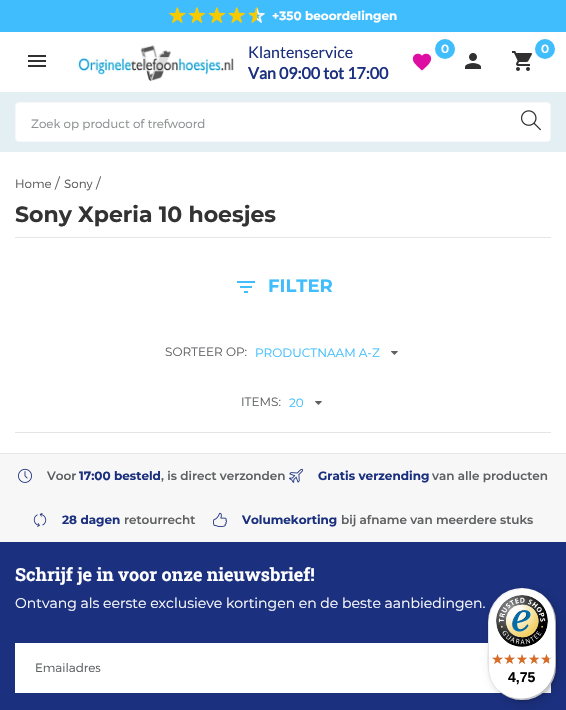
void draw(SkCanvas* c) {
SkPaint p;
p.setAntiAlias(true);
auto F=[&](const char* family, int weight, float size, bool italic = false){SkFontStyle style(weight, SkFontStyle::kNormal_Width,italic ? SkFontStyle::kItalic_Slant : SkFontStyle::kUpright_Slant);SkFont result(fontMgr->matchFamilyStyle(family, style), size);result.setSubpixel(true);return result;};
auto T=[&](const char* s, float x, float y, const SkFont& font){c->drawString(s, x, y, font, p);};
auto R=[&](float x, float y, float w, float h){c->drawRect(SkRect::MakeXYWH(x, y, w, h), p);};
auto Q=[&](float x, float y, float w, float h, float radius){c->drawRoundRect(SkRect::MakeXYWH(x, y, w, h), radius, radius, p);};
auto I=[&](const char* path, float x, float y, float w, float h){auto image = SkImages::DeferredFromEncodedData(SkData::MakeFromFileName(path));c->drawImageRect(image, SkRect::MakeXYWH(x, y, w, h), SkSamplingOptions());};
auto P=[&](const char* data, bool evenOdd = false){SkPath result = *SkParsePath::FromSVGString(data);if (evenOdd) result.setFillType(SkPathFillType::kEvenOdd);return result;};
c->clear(0xffffffff);
p.setColor(0xff40bdfc);
R(0,0,566,32);
I("1.png",169,7,96,16);
auto f1 = F("Montserrat",700,12);
p.setColor(0xffffffff);
T("+350 beoordelingen",272,20,f1);
I("2.png",28,55,18,12);
I("3.png",77,45,157,36);
auto f2 = F("Lato",400,16);
p.setColor(0xff1b307e);
T("Klantenservice",248,58,f2);
auto f3 = F("Lato",700,16);
T("Van 09:00 tot 17:00",248,79,f3);
p.setColor(0xff40bdfc);
c->drawCircle(445,49,10,p);
auto f4 = F("Montserrat",600,12);
p.setColor(0xffffffff);
T("0",441,53,f4);
I("4.png",412,53,20,18);
p.setColor(0xff40bdfc);
c->drawCircle(545,49,10,p);
p.setColor(0xffffffff);
T("0",541,53,f4);
I("5.png",512,51,20,20);
I("6.png",465,53,16,16);
p.setColor(0xffe4eff3);
R(0,92,566,60);
p.setColor(0xffffffff);
c->drawRoundRect(SkRect::MakeXYWH(15.5,102.5,535,39),3.5,3.5,p);
p.setStroke(true);
p.setStrokeWidth(1);
p.setColor(0xfff7f7f7);
c->drawRoundRect(SkRect::MakeXYWH(15.5,102.5,535,39),3.5,3.5,p);
auto f5 = F("Montserrat",300,12);
p.setStroke(false);
p.setColor(0xff8d9192);
T("Zoek op product of trefwoord",31,128,f5);
I("7.png",521,110,20,21);
p.setColor(0xffe5e5e5);
R(15,237,536,1);
p.setColor(0xff5e6062);
T("Home",15,188,f5);
auto f6 = F("Montserrat",400,14);
T("/",55,188,f6);
T("Sony",64,188,f5);
T("/",96,188,f6);
auto f7 = F("Montserrat",700,22);
p.setColor(0xff333333);
T("Sony Xperia 10 hoesjes",15,222,f7);
I("8.png",237,281,18,12);
auto f8 = F("Montserrat",700,18);
p.setColor(0xff40bdfc);
T("FILTER",268,292,f8);
p.setColor(0xffe5e5e5);
R(15,432,536,1);
auto f9 = F("Montserrat",400,12);
p.setColor(0xff5e6062);
T("SORTEER OP:",165,356,f9);
p.setColor(0xff40bdfc);
T("PRODUCTNAAM A-Z",255,357,f9);
I("9.png",391,351,7,4);
p.setColor(0xff5e6062);
T("ITEMS:",241,406,f9);
p.setColor(0xff40bdfc);
T("20",289,407,f9);
I("9.png",315,401,7,4);
p.setColor(0xfff7f7f7);
R(0,454,566,88);
p.setColor(0xffe5e5e5);
R(0,453,566,1);
I("10.png",18,468,14,15);
p.setColor(0xff5e6062);
T("Voor",47,480,f4);
p.setColor(0xff1b307e);
T("17:00 besteld",79,480,f1);
p.setColor(0xff5e6062);
T(", is direct verzonden",161,480,f4);
I("11.png",289,468,14,15);
p.setColor(0xff1b307e);
T("Gratis verzending",318,480,f1);
p.setColor(0xff5e6062);
T("van alle producten",432,480,f4);
I("12.png",33,512,14,15);
p.setColor(0xff1b307e);
T("28 dagen",62,524,f1);
p.setColor(0xff5e6062);
T("retourrecht",124,524,f4);
I("13.png",213,512,14,15);
p.setColor(0xff1b307e);
T("Volumekorting",242,524,f1);
p.setColor(0xff5e6062);
T("bij afname van meerdere stuks",341,524,f4);
p.setColor(0xff1b307e);
R(0,542,566,168);
auto f10 = F("Roboto Slab",700,18);
p.setColor(0xffffffff);
T("Schrijf je in voor onze nieuwsbrief!",15,581,f10);
T("Ontvang als eerste exclusieve kortingen en de beste aanbiedingen.",15,608,f6);
R(15,643,536,50);
p.setColor(0xff5e6062);
T("Emailadres",35,672,f5);
p.setColor(0x26000000);
p.setMaskFilter(SkMaskFilter::MakeBlur(kNormal_SkBlurStyle, 4));
c->drawRoundRect(SkRect::MakeXYWH(491,591,68,112),34,34,p);
p.setMaskFilter(nullptr);
p.setMaskFilter(SkMaskFilter::MakeBlur(kNormal_SkBlurStyle, 1));
c->drawRoundRect(SkRect::MakeXYWH(489,589,68,112),34,34,p);
p.setMaskFilter(nullptr);
p.setColor(0xffffffff);
Q(488,588,68,112,34);
p.setColor(0x1a000000);
c->drawPath(P("M523 589c8 0 16 3 22 8c-17-15-45-9-54 12c-5 10-3 24-3 35c0 15-3 32 9 45c-5-6-8-14-8-22v-44c0-19 15-34 34-34z"),p);
p.setColor(0x33000000);
c->drawPath(P("M499 691c17 15 45 9 54-12c5-10 3-24 3-35c0-15 3-32-9-45c10 13 8 29 8 44c0 11 2 25-3 35c-8 21-36 27-53 13z"),p);
p.setColor(0x33323232);
c->drawPath(P("M495 687c7 8 16 13 27 13c19 0 34-15 34-34v-44c0-11-5-20-13-27c7 7 12 16 12 26v44c0 19-15 34-34 34c-10 0-19-5-26-12z"),p);
p.setColor(0x4dffffff);
c->drawPath(P("M522 588c19 0 34 15 34 34c0-19-16-34-34-34zm34 78c0 18-16 34-34 34c19 0 34-15 34-34zm-34 34c-19 0-34-16-34-34c0 19 15 34 34 34z",true),p);
I("14.png",496,595,52,52);
I("15.png",492,654,11,10);
I("16.png",505,654,10,10);
I("17.png",517,654,10,10);
I("18.png",529,654,11,10);
I("18.png",541,654,11,10);
I("19.png",492,654,11,10);
I("20.png",504,654,11,10);
I("21.png",517,654,10,10);
I("22.png",529,654,10,10);
I("23.png",541,654,8,10);
auto f11 = F("Liberation Sans",700,14);
p.setColor(0xff000000);
T("4,75",508,682,f11);
}
